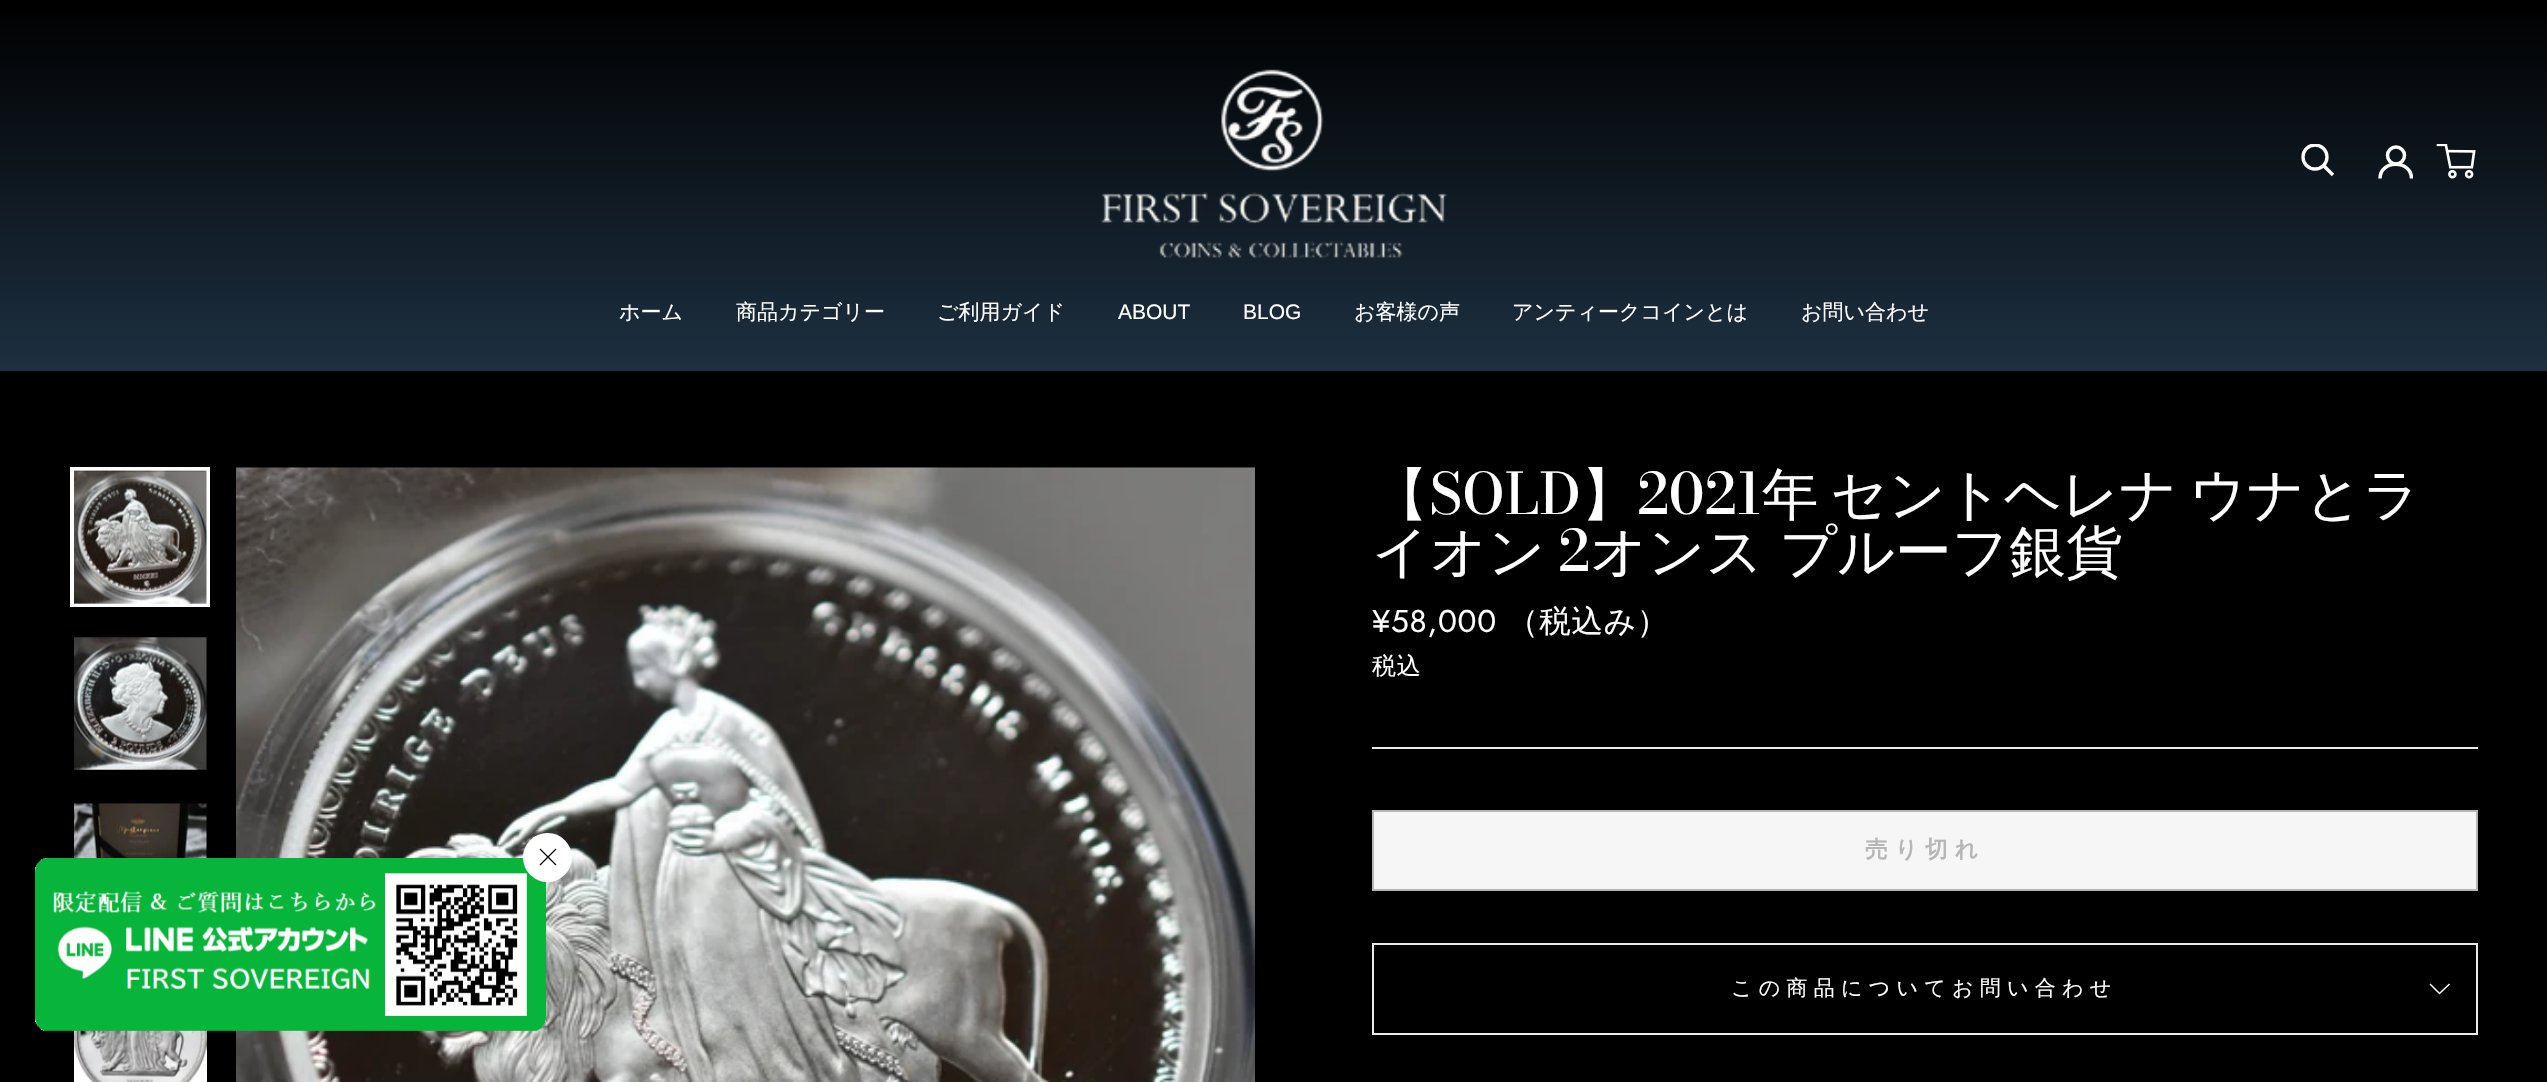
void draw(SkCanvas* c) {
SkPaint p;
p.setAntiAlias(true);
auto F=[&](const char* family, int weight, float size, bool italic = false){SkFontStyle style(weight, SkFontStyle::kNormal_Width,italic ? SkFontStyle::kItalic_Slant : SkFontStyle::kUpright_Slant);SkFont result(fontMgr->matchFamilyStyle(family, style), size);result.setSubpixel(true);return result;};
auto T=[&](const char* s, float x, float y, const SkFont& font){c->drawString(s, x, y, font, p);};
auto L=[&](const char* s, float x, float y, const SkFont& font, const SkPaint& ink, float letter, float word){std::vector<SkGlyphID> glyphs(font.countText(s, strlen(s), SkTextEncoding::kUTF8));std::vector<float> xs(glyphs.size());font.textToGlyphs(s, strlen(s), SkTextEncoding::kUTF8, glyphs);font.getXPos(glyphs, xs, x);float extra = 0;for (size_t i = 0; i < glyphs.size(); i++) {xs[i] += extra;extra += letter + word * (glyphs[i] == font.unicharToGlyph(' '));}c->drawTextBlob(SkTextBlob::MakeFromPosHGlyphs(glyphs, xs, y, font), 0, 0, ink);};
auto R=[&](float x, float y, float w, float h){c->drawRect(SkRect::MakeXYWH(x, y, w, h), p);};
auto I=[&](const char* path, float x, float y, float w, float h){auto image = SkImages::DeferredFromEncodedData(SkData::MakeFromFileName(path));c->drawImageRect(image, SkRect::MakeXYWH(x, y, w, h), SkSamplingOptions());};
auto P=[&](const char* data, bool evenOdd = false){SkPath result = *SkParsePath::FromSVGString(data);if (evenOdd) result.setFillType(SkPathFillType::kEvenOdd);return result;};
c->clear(0xff000000);
I("7.png",74,1030,133,52);
I("8.png",236,467,1019,615);
I("1.png",35,858,511,173);
p.setColor(0xffffffff);
c->drawCircle(547.5,857.5,24.5,p);
p.setStroke(true);
p.setStrokeWidth(1.2);
p.setColor(0xff000000);
c->drawPath(P("M540 849l16 16m0-16l-16 16"),p);
p.setStroke(false);
{
const SkColor colors[] = {0xff000000,0xff1d3041};
const float stops[] = {0,1};
const SkPoint ends[] = {{1274,0}, {1274,371}};
p.setShader(SkGradientShader::MakeLinear(ends, colors, stops, 2, SkTileMode::kClamp));
p.setAlpha(255);
}
R(0,14,2547,357);
I("2.png",1100,69,348,190);
p.setStroke(true);
p.setStrokeWidth(3.3);
p.setShader(nullptr);
p.setColor(0xffffffff);
c->drawPath(P("M2333 175l-9.5-9.5"),p);
c->save();
c->clipRect(SkRect::MakeXYWH(2301,144,35,35));
c->drawCircle(2315,157,12,p);
c->restore();
c->save();
c->clipRect(SkRect::MakeXYWH(2378,145,35,35));
p.setStrokeWidth(3.5);
c->drawPath(P("M2380 178.5c0-19 31.5-19 31.5 0"),p);
c->restore();
c->drawCircle(2396,155.5,8.5,p);
I("3.png",2436,144,40,35);
auto f1 = F("WenQuanYi Zen Hei",500,21);
p.setStroke(false);
T("ホーム",619,319,f1);
T("商品カテゴリー",736,319,f1);
T("ご利用ガイド",937,319,f1);
auto f2 = F("Liberation Sans",400,21);
T("ABOUT",1118,319,f2);
T("BLOG",1243,319,f2);
T("お客様の声",1354,319,f1);
T("アンティークコインとは",1512,319,f1);
T("お問い合わせ",1801,319,f1);
p.setStroke(true);
p.setStrokeWidth(4);
c->drawRect(SkRect::MakeXYWH(72,469,136,136),p);
I("4.png",74,470,133,134);
I("5.png",74,637,133,133);
I("6.png",74,803,133,55);
auto f3 = F("WenQuanYi Zen Hei",500,56.5);
p.setStroke(false);
T("【",1372,514,f3);
auto f4 = F("Bodoni Moda",500,56.5);
T("SOLD",1429,514,f4);
T("】",1581,514,f3);
T("2021",1637,514,f4);
L("年 セントヘレナ ウナとラ",1762,514,f3,p,0,-5);
T("イオン",1372,571,f3);
T("2",1558,571,f4);
L("オンス プルーフ銀貨",1590,571,f3,p,0,-1);
auto f5 = F("Jost",400,31.5);
L("¥58,000",1372,632,f5,p,.75,0);
auto f6 = F("WenQuanYi Zen Hei",500,31.5);
L("（税込み）",1507,632,f6,p,.75,0);
auto f7 = F("WenQuanYi Zen Hei",500,24);
L("税込",1372,674,f7,p,.75,0);
p.setColor(0xffeaeaea);
R(1372,747,1106,2);
p.setColor(0xfff6f6f6);
c->drawRect(SkRect::MakeXYWH(1373,811,1104,79),p);
p.setStroke(true);
p.setStrokeWidth(2);
p.setColor(0xffb6b6b6);
c->drawRect(SkRect::MakeXYWH(1373,811,1104,79),p);
auto f8 = F("WenQuanYi Zen Hei",700,22.75);
p.setStroke(false);
L("売り切れ",1865,857,f8,p,7,0);
p.setColor(0xffeaeaea);
R(1372,1033,1106,2);
R(1372,943,1106,2);
R(2476,943,2,90);
R(1372,943,2,90);
p.setColor(0xffffffff);
L("この商品についてお問い合わせ",1731,995,f1,p,6.25,0);
p.setStroke(true);
p.setStrokeWidth(1.5);
c->drawPath(P("M2430 984l9.5 9.5l10-9.5"),p);
}
